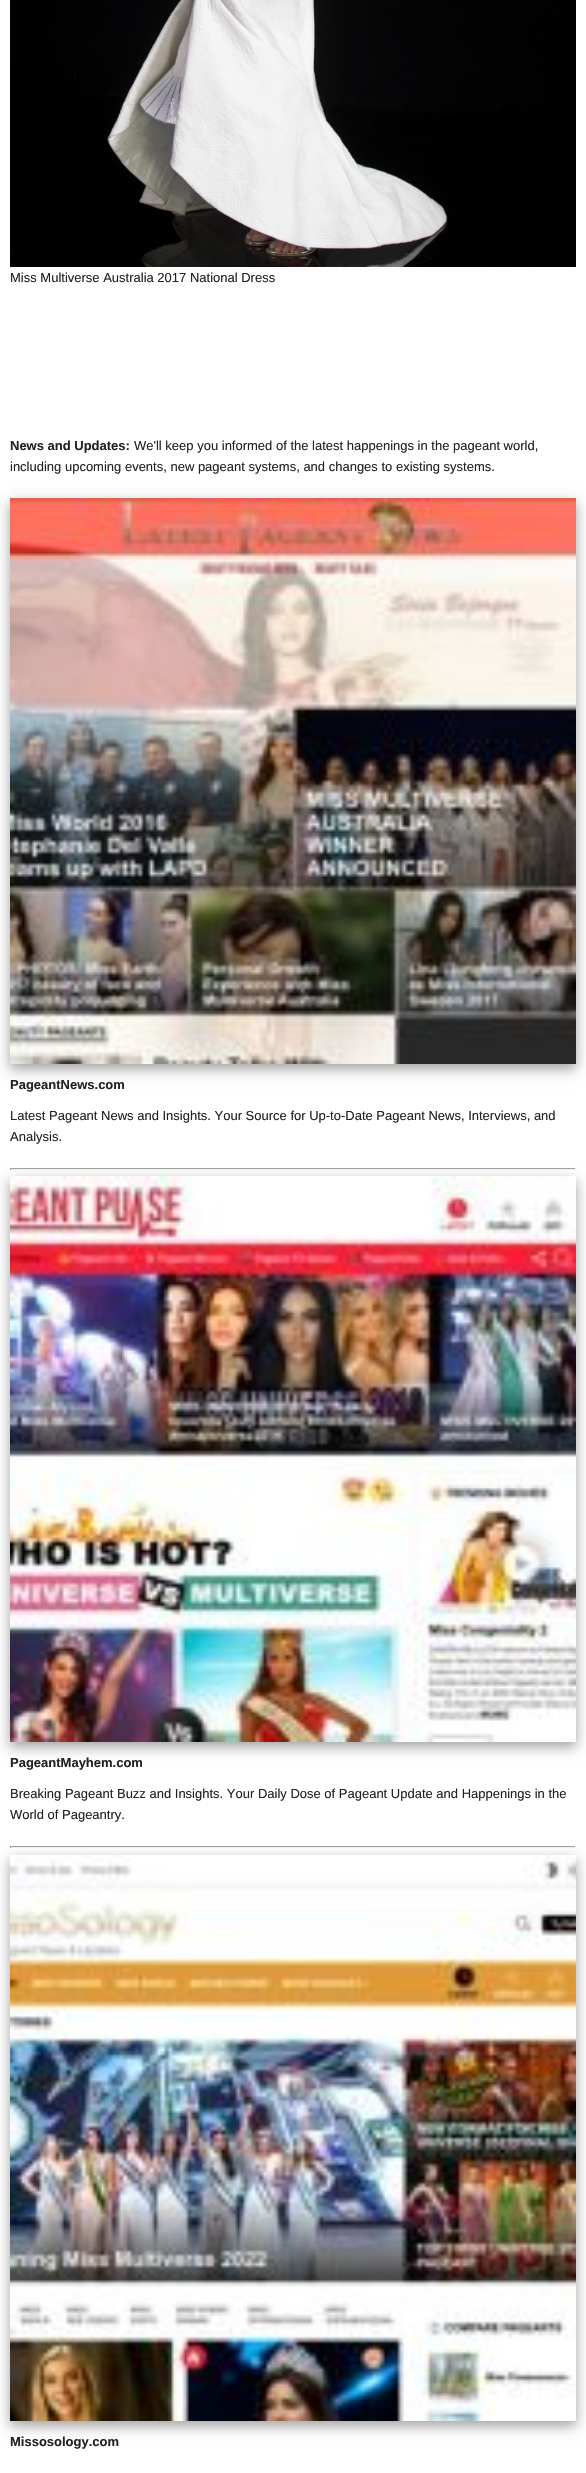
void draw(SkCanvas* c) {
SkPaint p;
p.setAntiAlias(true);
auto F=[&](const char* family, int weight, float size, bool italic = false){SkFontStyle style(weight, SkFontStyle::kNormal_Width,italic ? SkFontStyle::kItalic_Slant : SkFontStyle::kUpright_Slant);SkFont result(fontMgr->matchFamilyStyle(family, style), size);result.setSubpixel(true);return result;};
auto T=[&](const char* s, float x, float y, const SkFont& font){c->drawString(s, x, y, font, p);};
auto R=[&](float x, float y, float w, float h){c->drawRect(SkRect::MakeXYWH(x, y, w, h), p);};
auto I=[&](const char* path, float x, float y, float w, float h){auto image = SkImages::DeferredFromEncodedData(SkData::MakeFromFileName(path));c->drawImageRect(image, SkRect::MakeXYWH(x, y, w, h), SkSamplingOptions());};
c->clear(0xffffffff);
I("1.png",10,0,566,267);
auto f1 = F("Liberation Sans",400,13);
p.setColor(0xff222222);
T("Miss Multiverse Australia 2017 National Dress",10,282,f1);
auto f2 = F("Liberation Sans",700,13);
T("News and Updates:",10,450,f2);
T("We'll keep you informed of the latest happenings in the pageant world,",134,450,f1);
T("including upcoming events, new pageant systems, and changes to existing systems.",10,471,f1);
p.setColor(0x30000000);
p.setMaskFilter(SkMaskFilter::MakeBlur(kNormal_SkBlurStyle, 7.5));
c->drawRect(SkRect::MakeXYWH(10,503,566,566),p);
p.setMaskFilter(nullptr);
p.setColor(0x33000000);
p.setMaskFilter(SkMaskFilter::MakeBlur(kNormal_SkBlurStyle, 5));
c->drawRect(SkRect::MakeXYWH(10,503,566,566),p);
p.setMaskFilter(nullptr);
I("2.png",10,498,566,566);
p.setColor(0xff222222);
T("PageantNews.com",10,1089,f2);
T("Latest Pageant News and Insights. Your Source for Up-to-Date Pageant News, Interviews, and",10,1120,f1);
T("Analysis.",10,1141,f1);
p.setColor(0x30000000);
p.setMaskFilter(SkMaskFilter::MakeBlur(kNormal_SkBlurStyle, 7.5));
c->drawRect(SkRect::MakeXYWH(10,1181,566,566),p);
p.setMaskFilter(nullptr);
p.setColor(0x33000000);
p.setMaskFilter(SkMaskFilter::MakeBlur(kNormal_SkBlurStyle, 5));
c->drawRect(SkRect::MakeXYWH(10,1181,566,566),p);
p.setMaskFilter(nullptr);
p.setColor(0xff9f9f9f);
R(10,1168,566,1);
p.setColor(0xffeeeeee);
R(575,1168,1,2);
R(10,1169,566,1);
p.setColor(0xff9f9f9f);
R(10,1168,1,2);
I("3.png",10,1176,566,566);
p.setColor(0xff222222);
T("PageantMayhem.com",10,1767,f2);
T("Breaking Pageant Buzz and Insights. Your Daily Dose of Pageant Update and Happenings in the",10,1798,f1);
T("World of Pageantry.",10,1819,f1);
p.setColor(0x30000000);
p.setMaskFilter(SkMaskFilter::MakeBlur(kNormal_SkBlurStyle, 7.5));
c->drawRect(SkRect::MakeXYWH(10,1860,566,566),p);
p.setMaskFilter(nullptr);
p.setColor(0x33000000);
p.setMaskFilter(SkMaskFilter::MakeBlur(kNormal_SkBlurStyle, 5));
c->drawRect(SkRect::MakeXYWH(10,1860,566,566),p);
p.setMaskFilter(nullptr);
p.setColor(0xff9f9f9f);
R(10,1846,566,1);
p.setColor(0xffeeeeee);
R(575,1846,1,2);
R(10,1847,566,1);
p.setColor(0xff9f9f9f);
R(10,1846,1,2);
I("4.png",10,1855,566,566);
p.setColor(0xff222222);
T("Missosology.com",10,2446,f2);
}
